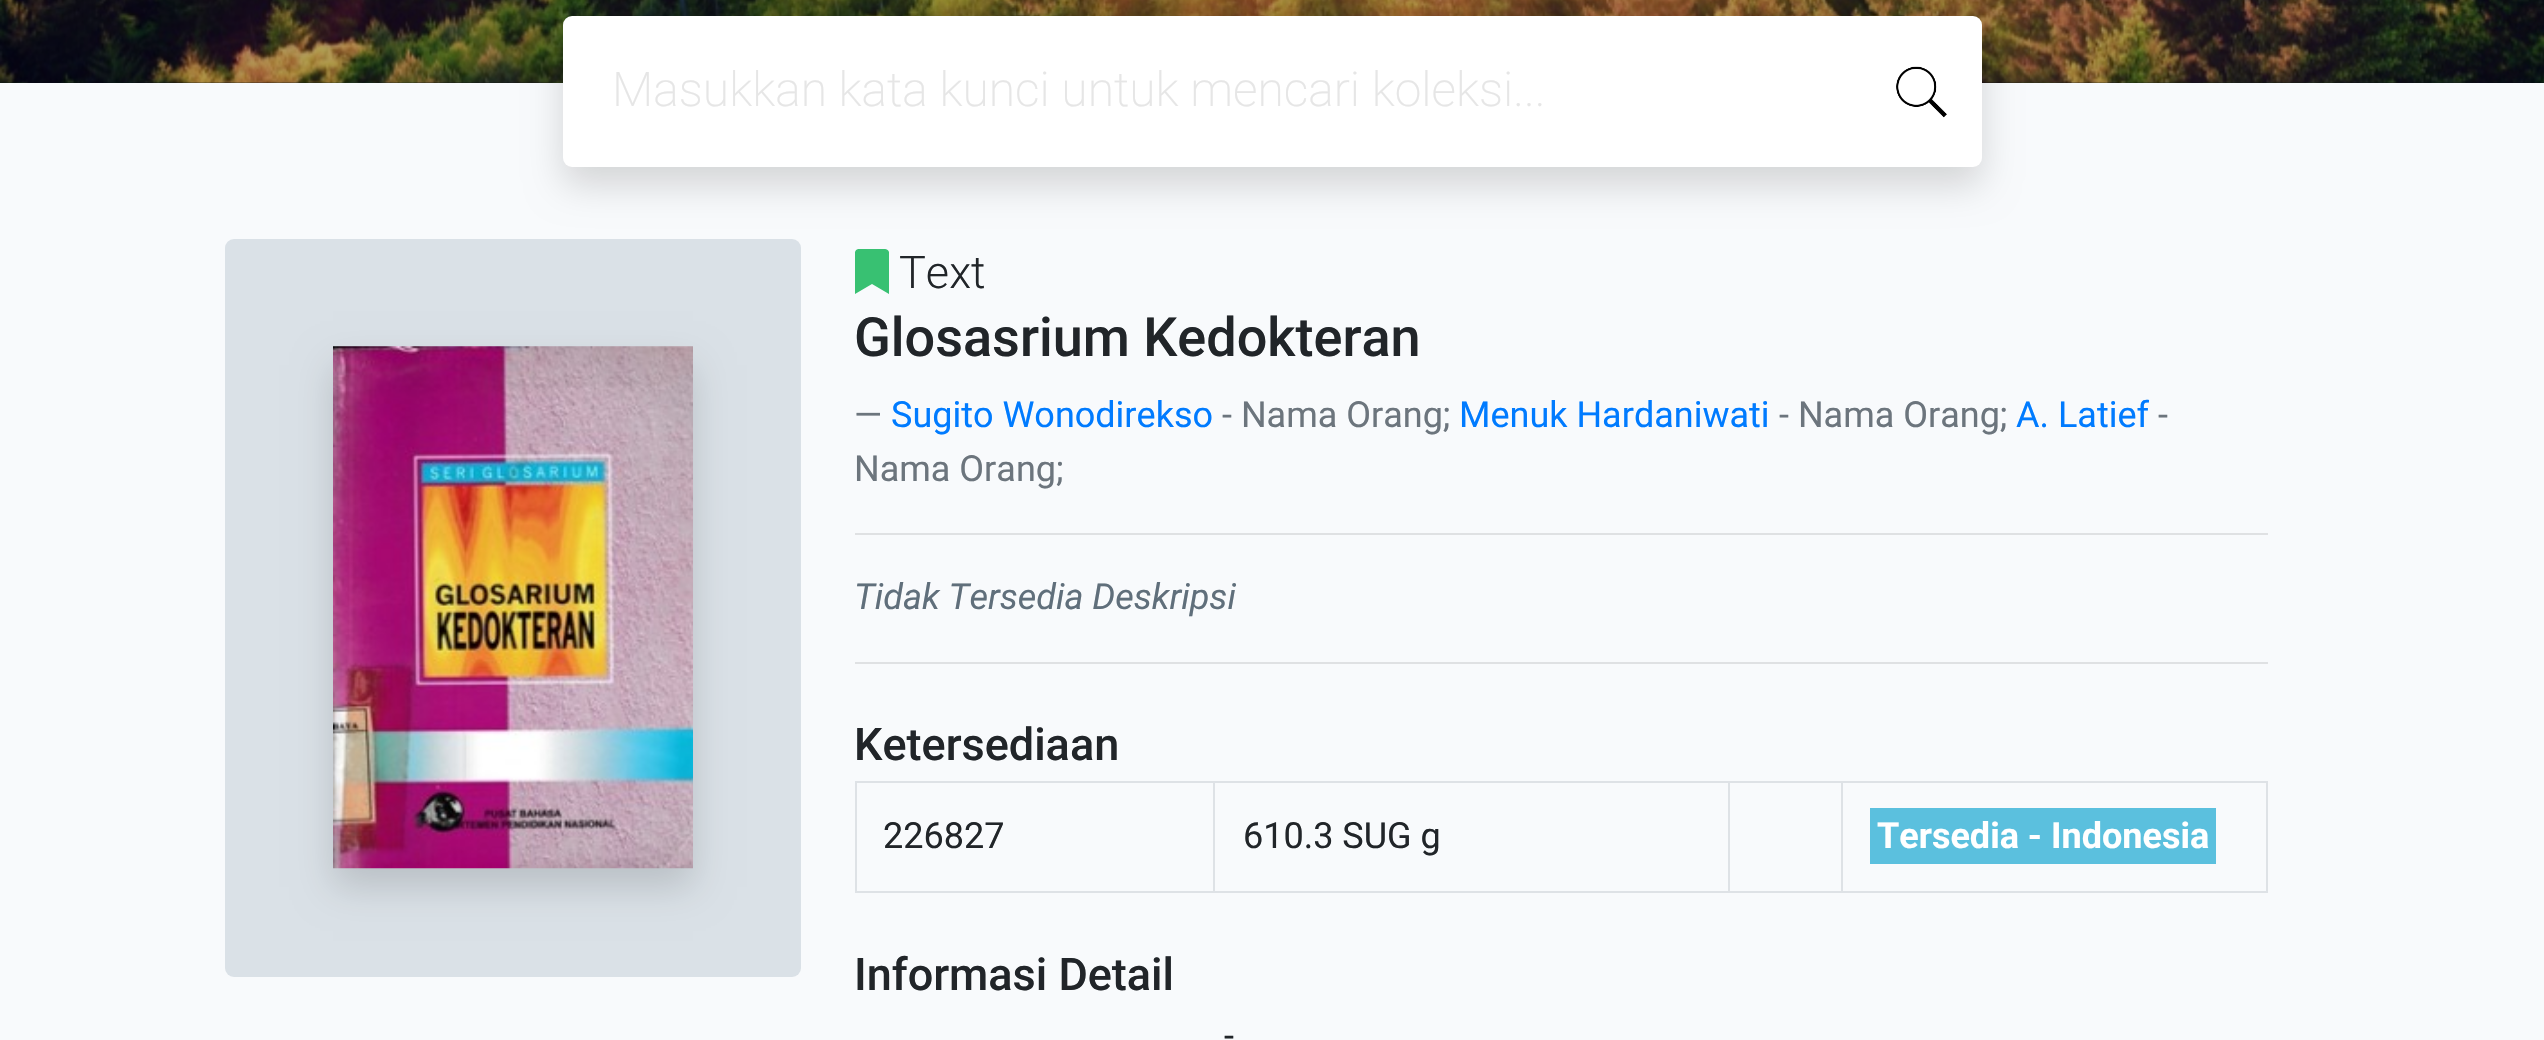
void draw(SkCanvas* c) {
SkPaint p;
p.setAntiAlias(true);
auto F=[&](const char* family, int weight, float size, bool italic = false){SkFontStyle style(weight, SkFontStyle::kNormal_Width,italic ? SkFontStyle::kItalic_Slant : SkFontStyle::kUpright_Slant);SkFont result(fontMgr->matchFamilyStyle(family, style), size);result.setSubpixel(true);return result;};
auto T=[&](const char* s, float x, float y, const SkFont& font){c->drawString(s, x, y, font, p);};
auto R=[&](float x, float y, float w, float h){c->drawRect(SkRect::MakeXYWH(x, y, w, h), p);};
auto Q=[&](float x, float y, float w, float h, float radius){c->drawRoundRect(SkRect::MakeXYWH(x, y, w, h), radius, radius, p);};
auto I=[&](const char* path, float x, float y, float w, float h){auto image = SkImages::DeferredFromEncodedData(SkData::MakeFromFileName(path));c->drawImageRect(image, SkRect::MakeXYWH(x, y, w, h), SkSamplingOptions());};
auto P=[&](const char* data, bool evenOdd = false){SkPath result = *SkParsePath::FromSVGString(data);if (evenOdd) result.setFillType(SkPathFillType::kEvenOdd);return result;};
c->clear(0xfff8fafc);
I("1.png",0,82,2544,1);
I("2.png",0,0,2544,83);
p.setColor(0xffdae1e7);
Q(225,239,576,738,9);
p.setColor(0x26000000);
p.setMaskFilter(SkMaskFilter::MakeBlur(kNormal_SkBlurStyle, 18));
c->drawRoundRect(SkRect::MakeXYWH(563,34,1419,151),9,9,p);
p.setMaskFilter(nullptr);
p.setColor(0xffffffff);
Q(563,16,1419,151,9);
I("3.png",1896,66,51,52);
auto f1 = F("Roboto",200,48);
p.setColor(0xffe6e6e6);
T("Masukkan kata kunci untuk mencari koleksi...",612,106,f1);
p.setColor(0x26000000);
p.setMaskFilter(SkMaskFilter::MakeBlur(kNormal_SkBlurStyle, 18));
c->drawRect(SkRect::MakeXYWH(333,365,360,522),p);
p.setMaskFilter(nullptr);
I("4.png",333,346,360,523);
p.setColor(0xff38c172);
c->drawPath(P("M855 294v-42c1-4 5-3 8-3h17c3 0 8-1 9 3v42l-17-10z"),p);
auto f2 = F("Roboto",300,45);
p.setColor(0xff212529);
T("Text",899,288,f2);
auto f3 = F("Roboto",500,54);
T("Glosasrium Kedokteran",854,356,f3);
auto f4 = F("Roboto",400,36);
p.setColor(0xff6c757d);
T("—",854,427,f4);
p.setColor(0xff007bff);
T("Sugito Wonodirekso",891,427,f4);
p.setColor(0xff6c757d);
T("- Nama Orang;",1222,427,f4);
p.setColor(0xff007bff);
T("Menuk Hardaniwati",1459,427,f4);
p.setColor(0xff6c757d);
T("- Nama Orang;",1779,427,f4);
p.setColor(0xff007bff);
T("A. Latief",2016,427,f4);
p.setColor(0xff6c757d);
T("-",2158,427,f4);
T("Nama Orang;",854,481,f4);
p.setColor(0xffdfe1e3);
R(855,533,1413,2);
auto f5 = F("Roboto",400,36,true);
p.setColor(0xff606f7b);
T("Tidak Tersedia Deskripsi",854,609,f5);
p.setColor(0xffdfe1e3);
R(855,662,1413,2);
auto f6 = F("Roboto",500,45);
p.setColor(0xff212529);
T("Ketersediaan",854,760,f6);
p.setColor(0xffdee2e6);
R(855,781,1413,2);
R(2266,781,2,112);
R(855,891,1413,2);
R(855,781,2,112);
p.setColor(0xff212529);
T("226827",883,848,f4);
p.setColor(0xffdee2e6);
R(1213,781,2,112);
p.setColor(0xff212529);
T("610.3 SUG g",1243,848,f4);
p.setColor(0xffdee2e6);
R(1728,781,2,112);
R(1841,781,2,112);
p.setColor(0xff5bc0de);
R(1870,808,346,56);
auto f7 = F("Roboto",700,36);
p.setColor(0xffffffff);
T("Tersedia - Indonesia",1877,848,f7);
p.setColor(0xff212529);
T("Informasi Detail",854,990,f6);
T("-",1224,1048,f4);
}
